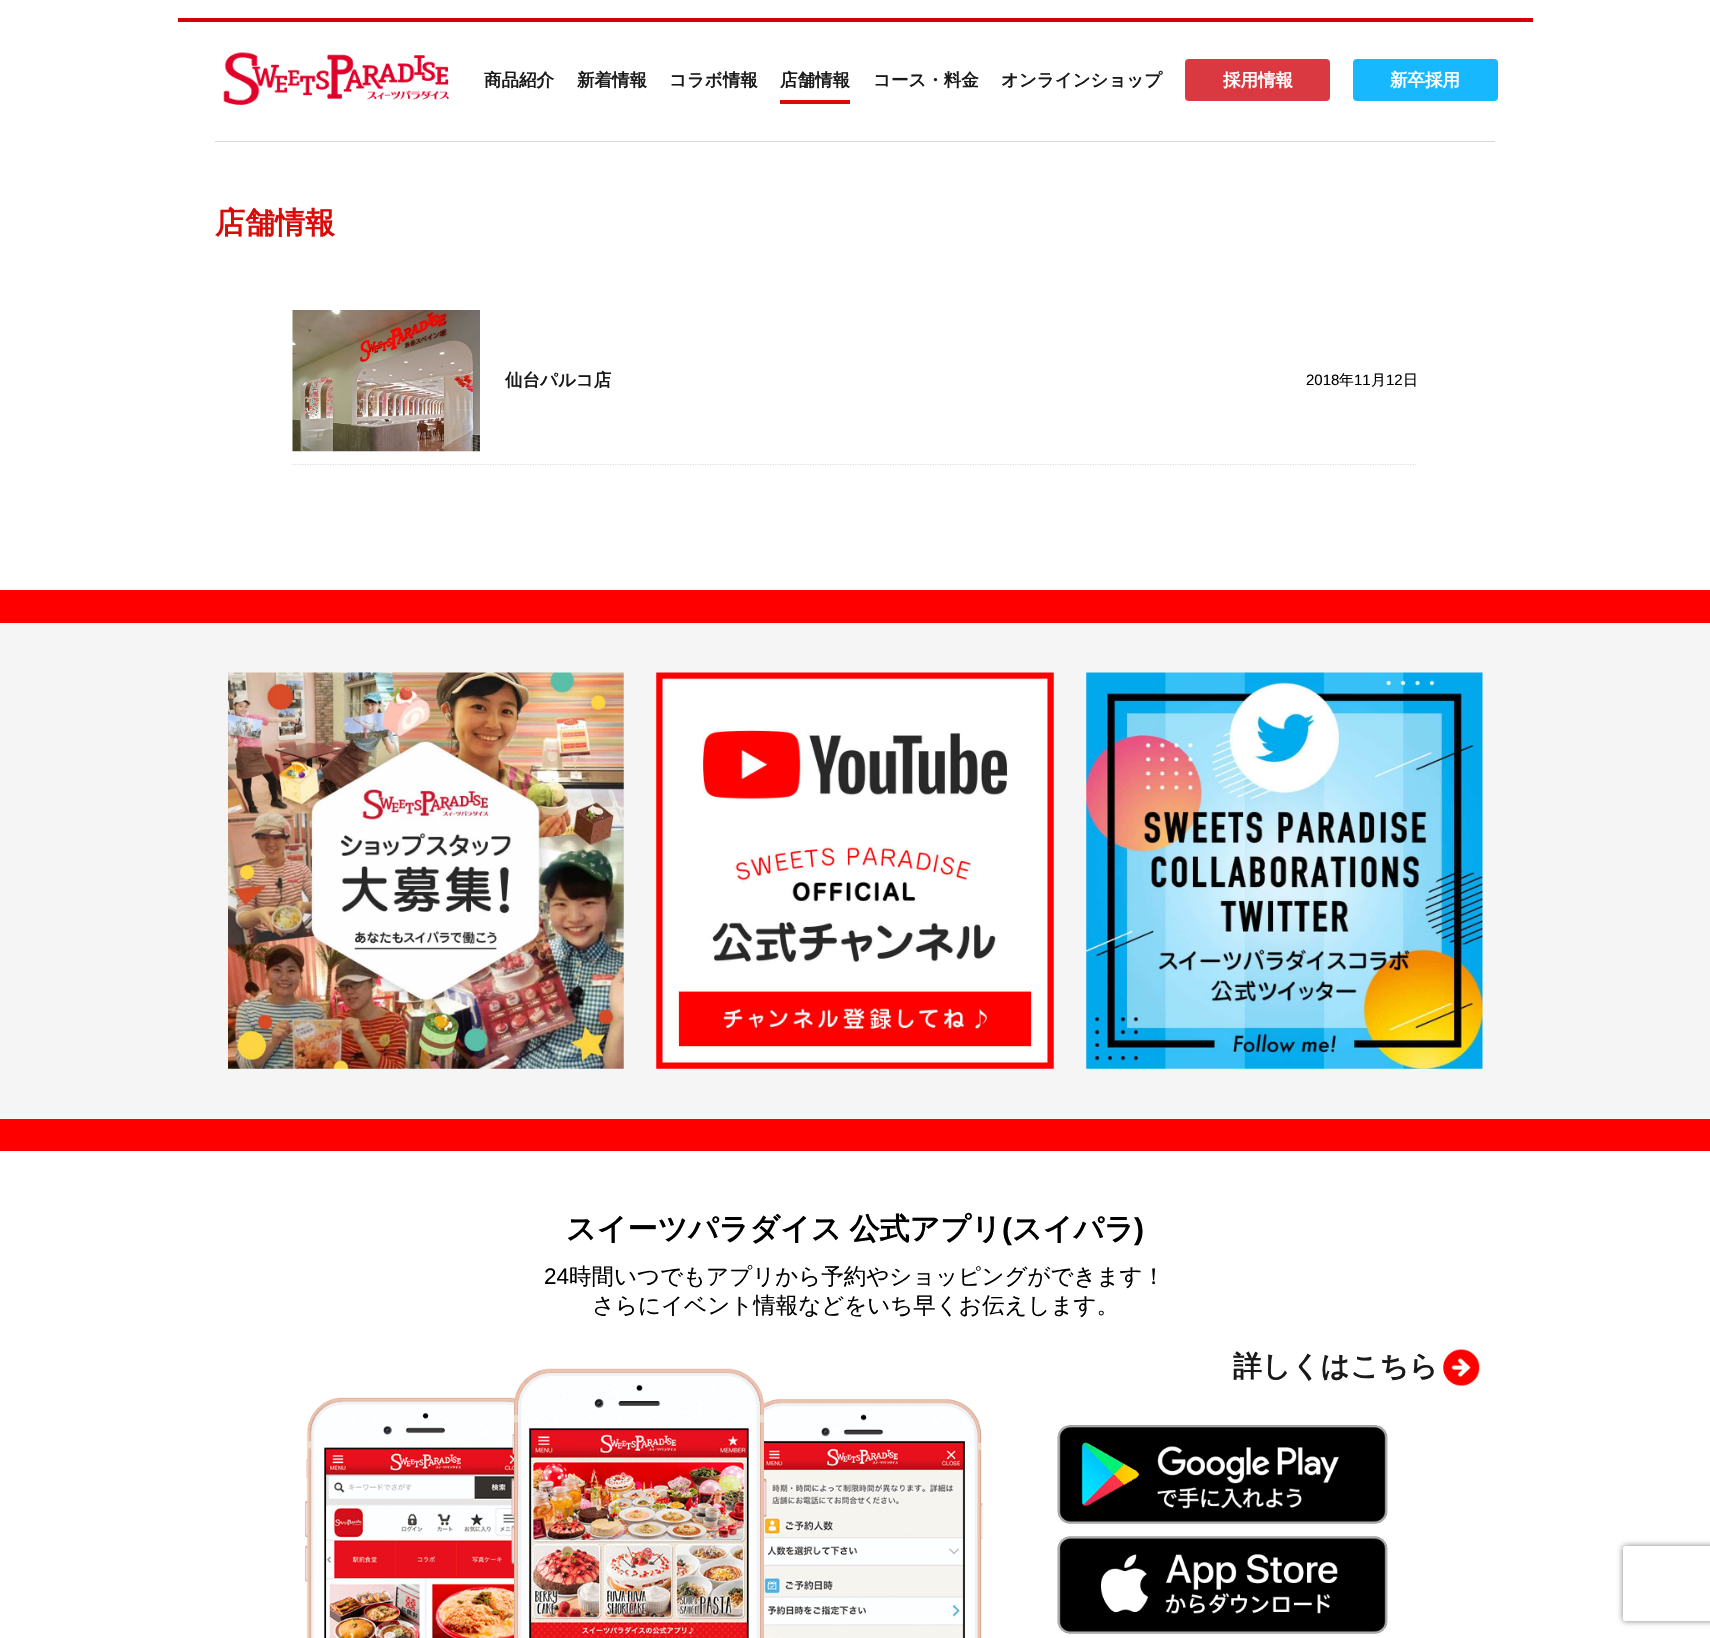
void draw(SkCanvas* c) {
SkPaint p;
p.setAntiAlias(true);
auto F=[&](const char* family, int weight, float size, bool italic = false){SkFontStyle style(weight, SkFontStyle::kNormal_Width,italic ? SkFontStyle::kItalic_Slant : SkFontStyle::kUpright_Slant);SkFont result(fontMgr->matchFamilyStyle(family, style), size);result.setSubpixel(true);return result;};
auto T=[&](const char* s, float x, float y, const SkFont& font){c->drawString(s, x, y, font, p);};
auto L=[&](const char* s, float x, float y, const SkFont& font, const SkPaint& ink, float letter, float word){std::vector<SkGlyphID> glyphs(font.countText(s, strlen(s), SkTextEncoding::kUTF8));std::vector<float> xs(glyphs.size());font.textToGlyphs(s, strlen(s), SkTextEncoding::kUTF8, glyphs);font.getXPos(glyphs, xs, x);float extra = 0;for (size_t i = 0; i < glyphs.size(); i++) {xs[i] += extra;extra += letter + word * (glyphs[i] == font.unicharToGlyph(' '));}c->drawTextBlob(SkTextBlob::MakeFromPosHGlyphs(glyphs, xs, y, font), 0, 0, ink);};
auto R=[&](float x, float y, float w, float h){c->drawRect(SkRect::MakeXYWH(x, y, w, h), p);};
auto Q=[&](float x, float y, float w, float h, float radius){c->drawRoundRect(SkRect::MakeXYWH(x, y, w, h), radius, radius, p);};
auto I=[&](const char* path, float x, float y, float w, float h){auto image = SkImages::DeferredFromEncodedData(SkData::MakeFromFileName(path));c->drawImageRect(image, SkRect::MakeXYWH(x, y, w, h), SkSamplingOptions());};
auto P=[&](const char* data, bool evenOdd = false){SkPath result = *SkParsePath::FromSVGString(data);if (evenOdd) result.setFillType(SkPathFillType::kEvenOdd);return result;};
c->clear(0xffffffff);
p.setColor(0xffd6000a);
R(178,18,1355,4);
I("1.png",223,52,226,53);
auto f1 = F("WenQuanYi Zen Hei",700,17.5);
p.setColor(0xff1a1a1a);
T("商品紹介",484,86,f1);
T("新着情報",577,86,f1);
T("コラボ情報",669,86,f1);
T("店舗情報",780,86,f1);
p.setColor(0xffd90b08);
R(780,100,70,4);
p.setColor(0xff1a1a1a);
T("コース・料金",873,86,f1);
T("オンラインショップ",1001,86,f1);
p.setColor(0xffda3941);
Q(1185,59,145,42,4);
p.setColor(0xffffffff);
T("採用情報",1223,86,f1);
p.setColor(0xff17b8fd);
Q(1353,59,145,42,4);
p.setColor(0xffffffff);
T("新卒採用",1390,86,f1);
p.setColor(0xffd9d9d9);
R(215,141,1280,1);
auto f2 = F("WenQuanYi Zen Hei",700,30);
p.setColor(0xffd90b08);
T("店舗情報",215,233,f2);
p.setStroke(true);
p.setStrokeWidth(1.2);
p.setColor(0xffdddddd);
p.setPathEffect(SkDashPathEffect::Make({{1.25f,1.25f}}, 0));
c->drawPath(P("M292.5 464.5h1125"),p);
p.setPathEffect(nullptr);
I("2.png",292,310,188,142);
p.setStroke(false);
p.setColor(0xff1a1a1a);
T("仙台パルコ店",505,386,f1);
auto f3 = F("Liberation Sans",400,15);
p.setColor(0xff000000);
T("2018",1306,385,f3);
auto f4 = F("WenQuanYi Zen Hei",500,15);
T("年",1339,385,f4);
T("11",1354,385,f3);
T("月",1371,385,f4);
T("12",1386,385,f3);
T("日",1403,385,f4);
p.setColor(0xfff5f5f5);
R(0,623,1710,496);
p.setColor(0xffff0000);
R(0,590,1710,33);
R(0,1119,1710,32);
I("3.png",228,672,396,397);
I("4.png",656,672,398,397);
I("5.png",1086,672,397,397);
p.setColor(0xff000000);
L("スイーツパラダイス 公式アプリ",566,1239,f2,p,0,-1);
auto f5 = F("Liberation Sans",700,30);
T("(",1002,1239,f5);
T("スイパラ",1012,1239,f2);
T(")",1134,1239,f5);
auto f6 = F("Liberation Sans",400,22.5);
T("24",544,1284,f6);
auto f7 = F("WenQuanYi Zen Hei",500,22.5);
T("時間いつでもアプリから予約やショッピングができます！",569,1284,f7);
T("さらにイベント情報などをいち早くお伝えします。",592,1313,f7);
I("6.png",1443,1349,37,37);
auto f8 = F("WenQuanYi Zen Hei",700,28.75);
p.setColor(0xff1a1a1a);
T("詳しくはこちら",1233,1376,f8);
I("7.png",305,1368,678,270);
I("8.png",1057,1425,331,99);
I("9.png",1057,1536,331,98);
c->save();
c->clipPath(P("M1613 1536h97v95h-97zm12.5 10h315c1.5 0 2.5 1 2.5 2.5v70c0 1.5-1 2.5-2.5 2.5h-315c-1.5 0-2.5-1-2.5-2.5v-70c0-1.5 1-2.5 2.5-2.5z",true),true);
p.setColor(0xff808080);
p.setMaskFilter(SkMaskFilter::MakeBlur(kNormal_SkBlurStyle, 3));
c->drawRoundRect(SkRect::MakeXYWH(1623,1546,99,75),2.5,2.5,p);
p.setMaskFilter(nullptr);
c->restore();
}
